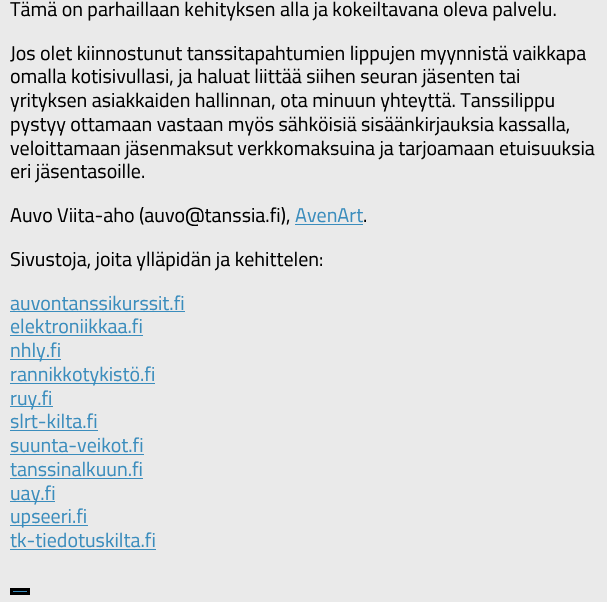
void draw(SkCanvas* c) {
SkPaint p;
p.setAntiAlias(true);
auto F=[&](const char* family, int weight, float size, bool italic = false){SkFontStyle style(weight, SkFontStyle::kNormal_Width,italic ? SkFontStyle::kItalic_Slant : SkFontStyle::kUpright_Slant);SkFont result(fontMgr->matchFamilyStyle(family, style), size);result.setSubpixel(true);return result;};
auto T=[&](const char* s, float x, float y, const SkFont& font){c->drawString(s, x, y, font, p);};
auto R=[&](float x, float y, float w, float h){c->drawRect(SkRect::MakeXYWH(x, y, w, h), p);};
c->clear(0xffeaeaea);
auto f1 = F("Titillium",400,20);
p.setColor(0xff000000);
T("Tämä on parhaillaan kehityksen alla ja kokeiltavana oleva palvelu.",10,16,f1);
T("Jos olet kiinnostunut tanssitapahtumien lippujen myynnistä vaikkapa",10,60,f1);
T("omalla kotisivullasi, ja haluat liittää siihen seuran jäsenten tai",10,83,f1);
T("yrityksen asiakkaiden hallinnan, ota minuun yhteyttä. Tanssilippu",10,107,f1);
T("pystyy ottamaan vastaan myös sähköisiä sisäänkirjauksia kassalla,",10,131,f1);
T("veloittamaan jäsenmaksut verkkomaksuina ja tarjoamaan etuisuuksia",10,155,f1);
T("eri jäsentasoille.",10,178,f1);
T("Auvo Viita-aho (auvo@tanssia.fi),",10,222,f1);
p.setColor(0xff3b8dbd);
T("AvenArt",295,222,f1);
R(295,224,68,1);
p.setColor(0xff000000);
T(".",363,222,f1);
T("Sivustoja, joita ylläpidän ja kehittelen:",10,266,f1);
p.setColor(0xff3b8dbd);
T("auvontanssikurssit.fi",10,310,f1);
R(10,311,175,1);
T("elektroniikkaa.fi",10,333,f1);
R(10,335,133,1);
R(10,359,51,1);
T("nhly.fi",10,357,f1);
R(10,383,145,1);
T("rannikkotykistö.fi",10,381,f1);
R(10,406,43,1);
T("ruy.fi",10,405,f1);
T("slrt-kilta.fi",10,428,f1);
R(10,430,88,1);
T("suunta-veikot.fi",10,452,f1);
R(10,454,134,1);
T("tanssinalkuun.fi",10,476,f1);
R(10,478,133,1);
R(10,501,45,1);
T("uay.fi",10,500,f1);
R(10,525,78,1);
T("upseeri.fi",10,523,f1);
T("tk-tiedotuskilta.fi",10,547,f1);
R(10,549,146,1);
c->drawRect(SkRect::MakeXYWH(11.5,589.5,17,4),p);
p.setStroke(true);
p.setStrokeWidth(3);
p.setColor(0xff000000);
c->drawRect(SkRect::MakeXYWH(11.5,589.5,17,4),p);
}
